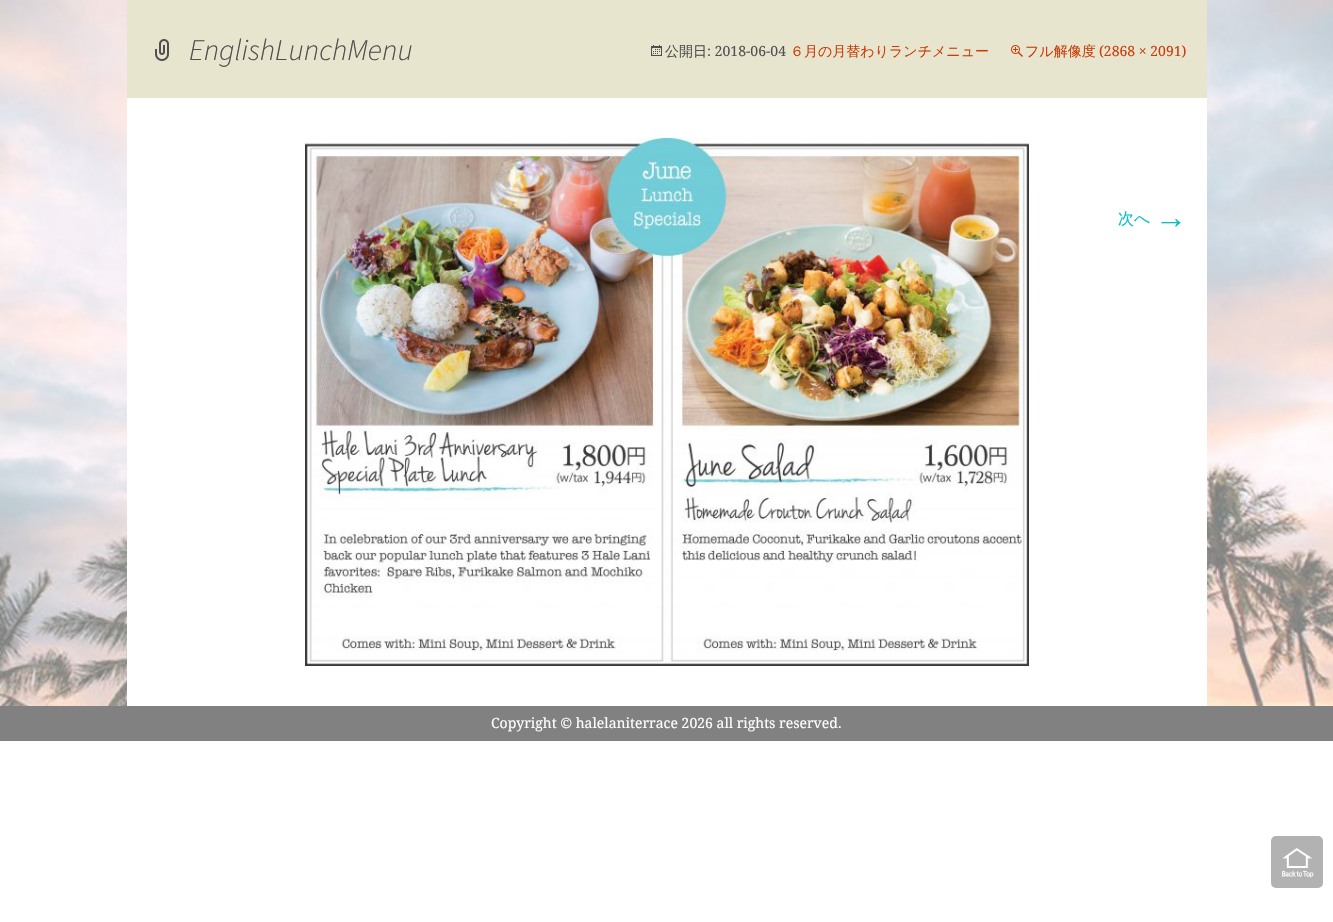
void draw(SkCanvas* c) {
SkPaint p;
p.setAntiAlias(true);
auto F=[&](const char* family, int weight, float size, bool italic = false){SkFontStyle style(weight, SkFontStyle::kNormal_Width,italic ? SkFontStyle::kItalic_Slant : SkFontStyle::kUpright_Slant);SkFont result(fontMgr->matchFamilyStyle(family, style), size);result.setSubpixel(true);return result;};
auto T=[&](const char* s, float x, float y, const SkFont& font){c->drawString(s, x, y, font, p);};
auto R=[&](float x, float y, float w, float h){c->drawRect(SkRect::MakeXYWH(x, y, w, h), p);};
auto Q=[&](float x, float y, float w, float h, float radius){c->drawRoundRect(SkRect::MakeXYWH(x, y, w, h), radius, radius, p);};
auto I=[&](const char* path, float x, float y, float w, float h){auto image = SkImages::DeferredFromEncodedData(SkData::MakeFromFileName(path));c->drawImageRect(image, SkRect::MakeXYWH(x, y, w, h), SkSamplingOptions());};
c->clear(0xffffffff);
I("1.png",0,0,1333,706);
p.setColor(0xffe8e5ce);
R(127,0,1080,98);
I("2.png",155,39,14,22);
auto f1 = F("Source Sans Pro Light",300,30,true);
p.setColor(0xff505050);
T("EnglishLunchMenu",189,60,f1);
I("3.png",651,45,11,11);
auto f2 = F("WenQuanYi Zen Hei",500,14);
T("公開日",665,56,f2);
auto f3 = F("Droid Serif",400,14);
T(": 2018-06-04",707,56,f3);
p.setColor(0xffca3c08);
T("６月の月替わりランチメニュー",790,56,f2);
I("4.png",1011,45,12,12);
T("フル解像度",1025,56,f2);
T("(2868 × 2091)",1099,56,f3);
p.setColor(0xffffffff);
R(127,98,1080,608);
I("5.png",305,138,724,528);
auto f4 = F("WenQuanYi Zen Hei",500,16);
p.setColor(0xff07c0c7);
T("次へ",1118,224,f4);
auto f5 = F("Liberation Serif",400,32);
T("→",1155,228,f5);
p.setColor(0xff818181);
R(0,706,1333,35);
p.setColor(0xffffffff);
T("Copyright © halelaniterrace 2026 all rights reserved.",491,728,f3);
p.setColor(0xffb2b2b2);
Q(1271,836,52,52,5);
I("6.png",1281,848,33,30);
}
